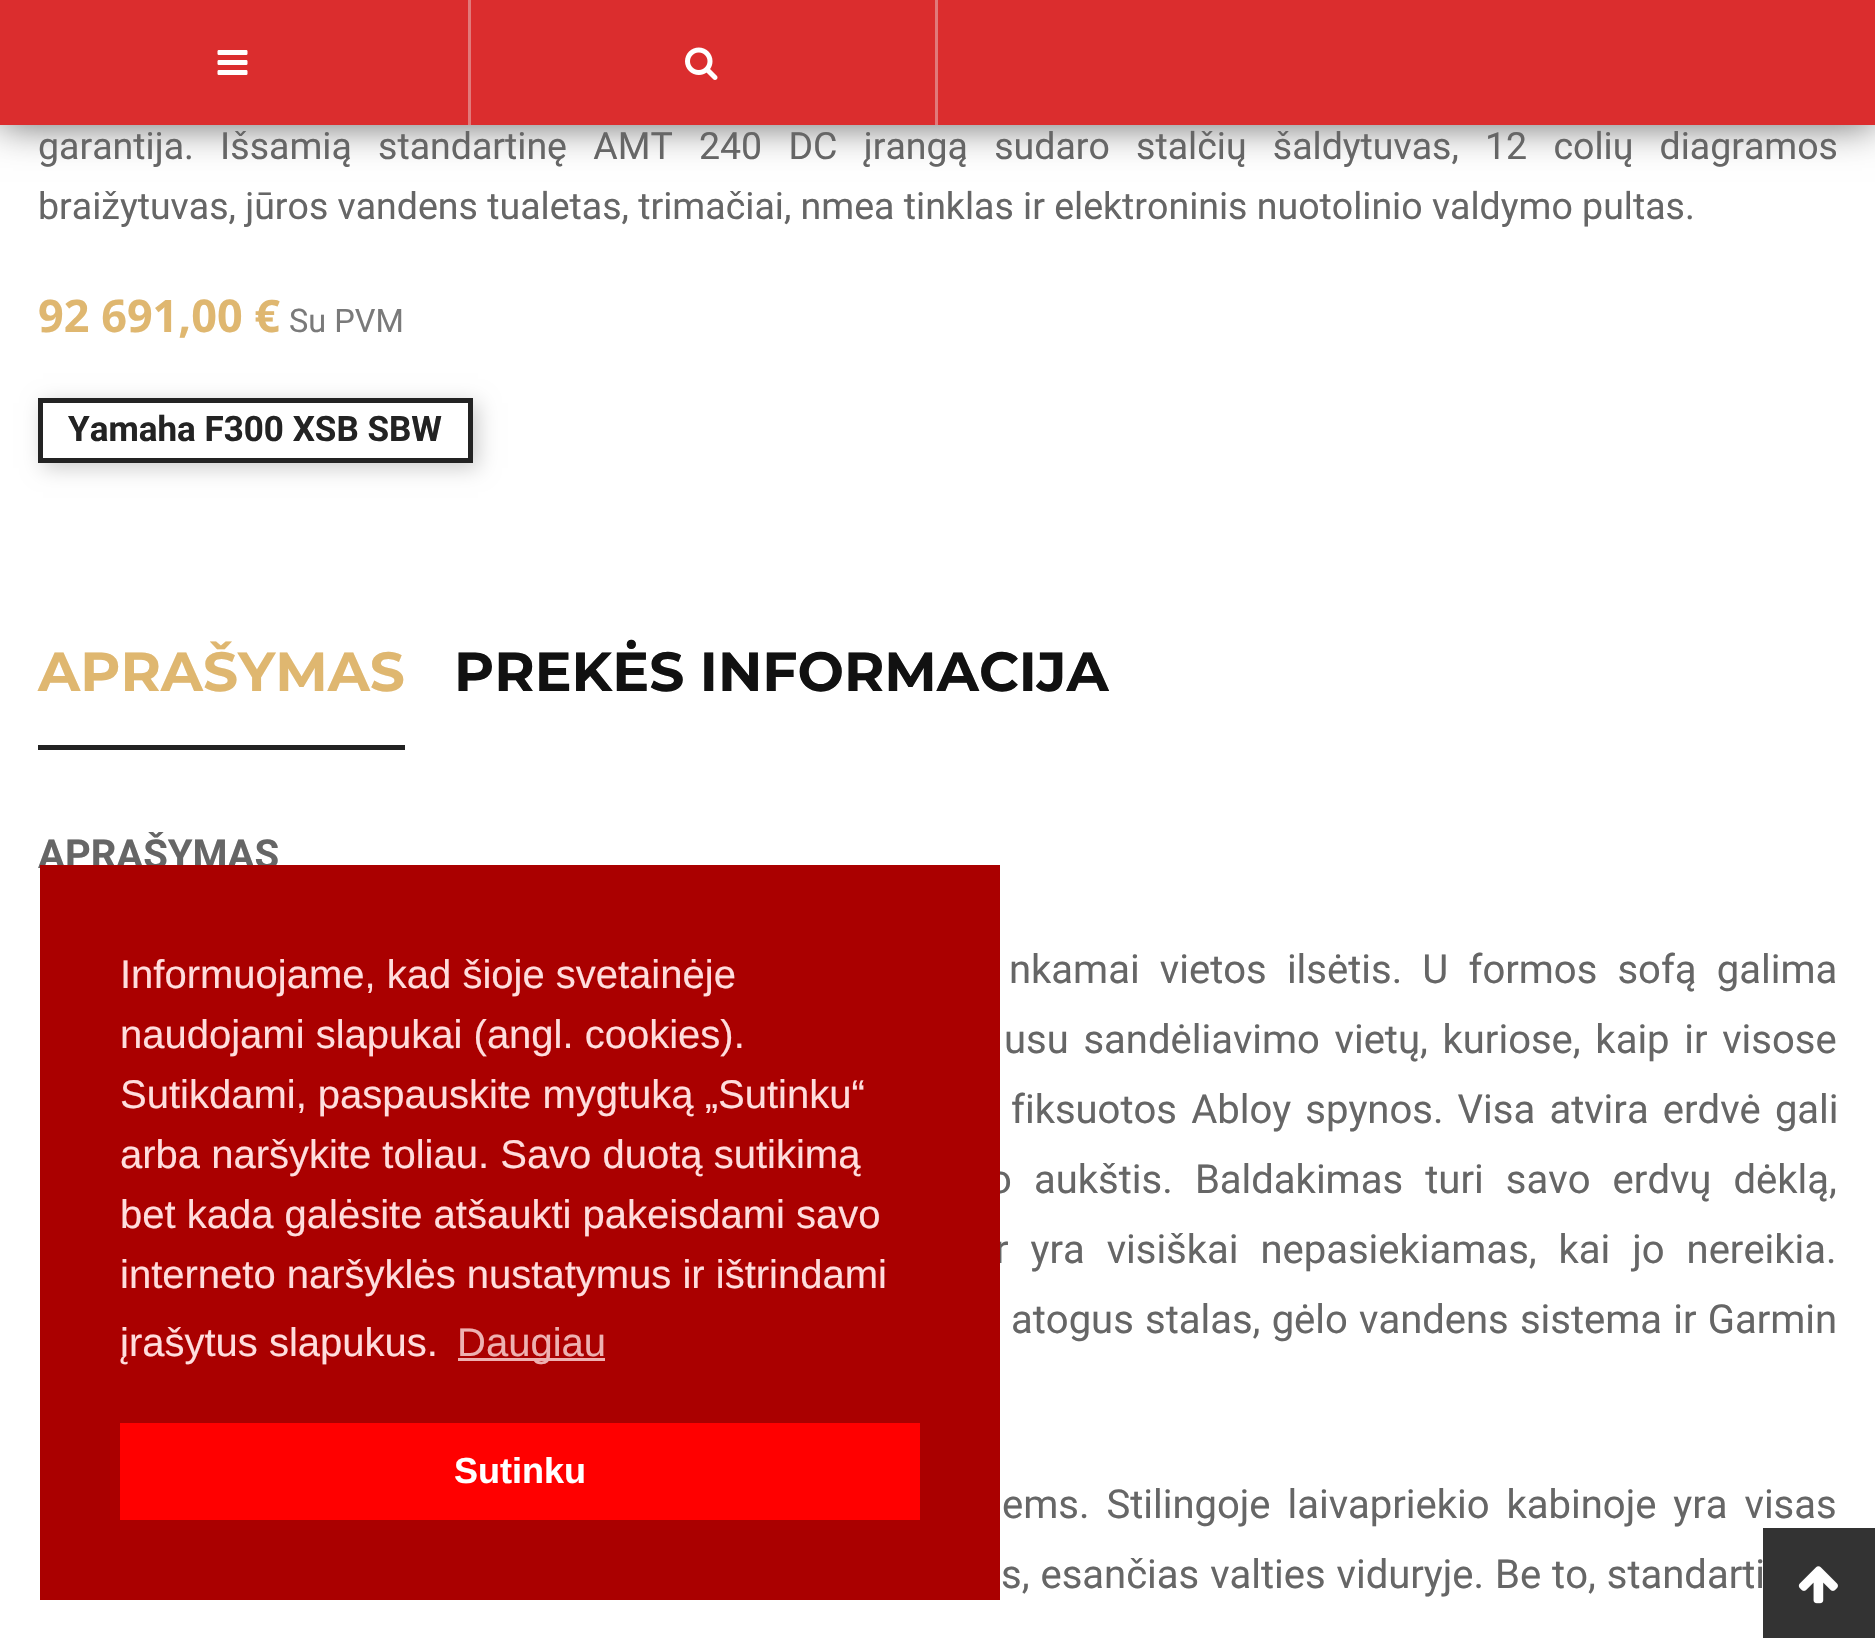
void draw(SkCanvas* c) {
SkPaint p;
p.setAntiAlias(true);
auto F=[&](const char* family, int weight, float size, bool italic = false){SkFontStyle style(weight, SkFontStyle::kNormal_Width,italic ? SkFontStyle::kItalic_Slant : SkFontStyle::kUpright_Slant);SkFont result(fontMgr->matchFamilyStyle(family, style), size);result.setSubpixel(true);return result;};
auto T=[&](const char* s, float x, float y, const SkFont& font){c->drawString(s, x, y, font, p);};
auto L=[&](const char* s, float x, float y, const SkFont& font, const SkPaint& ink, float letter, float word){std::vector<SkGlyphID> glyphs(font.countText(s, strlen(s), SkTextEncoding::kUTF8));std::vector<float> xs(glyphs.size());font.textToGlyphs(s, strlen(s), SkTextEncoding::kUTF8, glyphs);font.getXPos(glyphs, xs, x);float extra = 0;for (size_t i = 0; i < glyphs.size(); i++) {xs[i] += extra;extra += letter + word * (glyphs[i] == font.unicharToGlyph(' '));}c->drawTextBlob(SkTextBlob::MakeFromPosHGlyphs(glyphs, xs, y, font), 0, 0, ink);};
auto R=[&](float x, float y, float w, float h){c->drawRect(SkRect::MakeXYWH(x, y, w, h), p);};
auto I=[&](const char* path, float x, float y, float w, float h){auto image = SkImages::DeferredFromEncodedData(SkData::MakeFromFileName(path));c->drawImageRect(image, SkRect::MakeXYWH(x, y, w, h), SkSamplingOptions());};
c->clear(0xffffffff);
p.setColor(0x99000000);
p.setMaskFilter(SkMaskFilter::MakeBlur(kNormal_SkBlurStyle, 19));
c->drawRect(SkRect::MakeXYWH(0,0,1875,125),p);
p.setMaskFilter(nullptr);
p.setColor(0xffdb2d2e);
R(0,0,1875,125);
p.setColor(0xffe1797a);
R(468,0,3,125);
I("1.png",217,50,31,25);
R(935,0,3,125);
I("2.png",685,47,33,33);
auto f1 = F("Roboto",400,37.5);
p.setColor(0xff666666);
L("garantija. Išsamią standartinę AMT 240 DC įrangą sudaro stalčių šaldytuvas, 12 colių diagramos",38,159,f1,p,0,16.9);
T("braižytuvas, jūros vandens tualetas, trimačiai, nmea tinklas ir elektroninis nuotolinio valdymo pultas.",38,219,f1);
auto f2 = F("Open Sans",700,45);
p.setColor(0xffdfb770);
T("92 691,00 €",38,332,f2);
auto f3 = F("Roboto",400,32.5);
p.setColor(0xff7a7a7a);
T("Su PVM",289,332,f3);
p.setColor(0x33000000);
p.setMaskFilter(SkMaskFilter::MakeBlur(kNormal_SkBlurStyle, 10));
c->drawRect(SkRect::MakeXYWH(43,403,435,65),p);
p.setMaskFilter(nullptr);
p.setColor(0xffffffff);
c->drawRect(SkRect::MakeXYWH(40.5,400.5,430,60),p);
p.setStroke(true);
p.setStrokeWidth(5);
p.setColor(0xff232323);
c->drawRect(SkRect::MakeXYWH(40.5,400.5,430,60),p);
auto f4 = F("Roboto",700,35);
p.setStroke(false);
T("Yamaha F300 XSB SBW",68,441,f4);
p.setColor(0xff222222);
R(38,745,367,5);
auto f5 = F("Montserrat",700,55);
p.setColor(0xffdfb770);
T("APRAŠYMAS",38,691,f5);
p.setColor(0xff111111);
T("PREKĖS INFORMACIJA",454,691,f5);
auto f6 = F("Roboto",700,40);
p.setColor(0xff666666);
T("APRAŠYMAS",38,868,f6);
auto f7 = F("Roboto",400,40);
L("nkamai vietos ilsėtis. U formos sofą galima",1009,983,f7,p,0,10.25);
L("usu sandėliavimo vietų, kuriose, kaip ir visose",1004,1053,f7,p,0,4.75);
L("fiksuotos Abloy spynos. Visa atvira erdvė gali",1011,1123,f7,p,0,4.25);
L("o aukštis. Baldakimas turi savo erdvų dėklą,",989,1193,f7,p,0,12.25);
L("r yra visiškai nepasiekiamas, kai jo nereikia.",995,1263,f7,p,0,12);
L("atogus stalas, gėlo vandens sistema ir Garmin",1011,1333,f7,p,0,1.25);
L("ems. Stilingoje laivapriekio kabinoje yra visas",1002,1518,f7,p,0,7);
L("s, esančias valties viduryje. Be to, standarti",1001,1588,f7,p,0,1);
p.setColor(0xffaa0000);
R(40,865,960,735);
auto f8 = F("Liberation Sans",400,40);
p.setColor(0xffffdddd);
T("Informuojame, kad šioje svetainėje",120,988,f8);
T("naudojami slapukai (angl. cookies).",120,1048,f8);
T("Sutikdami, paspauskite mygtuką „Sutinku“",120,1108,f8);
T("arba naršykite toliau. Savo duotą sutikimą",120,1168,f8);
T("bet kada galėsite atšaukti pakeisdami savo",120,1228,f8);
T("interneto naršyklės nustatymus ir ištrindami",120,1288,f8);
T("įrašytus slapukus.",120,1356,f8);
p.setColor(0xffeeb1b1);
R(458,1358,147,3);
T("Daugiau",457,1356,f8);
p.setColor(0xffff0000);
R(120,1423,800,97);
auto f9 = F("Liberation Sans",700,36);
p.setColor(0xffffffff);
T("Sutinku",454,1483,f9);
p.setColor(0xff333333);
R(1763,1528,112,110);
I("3.png",1798,1566,40,38);
}
